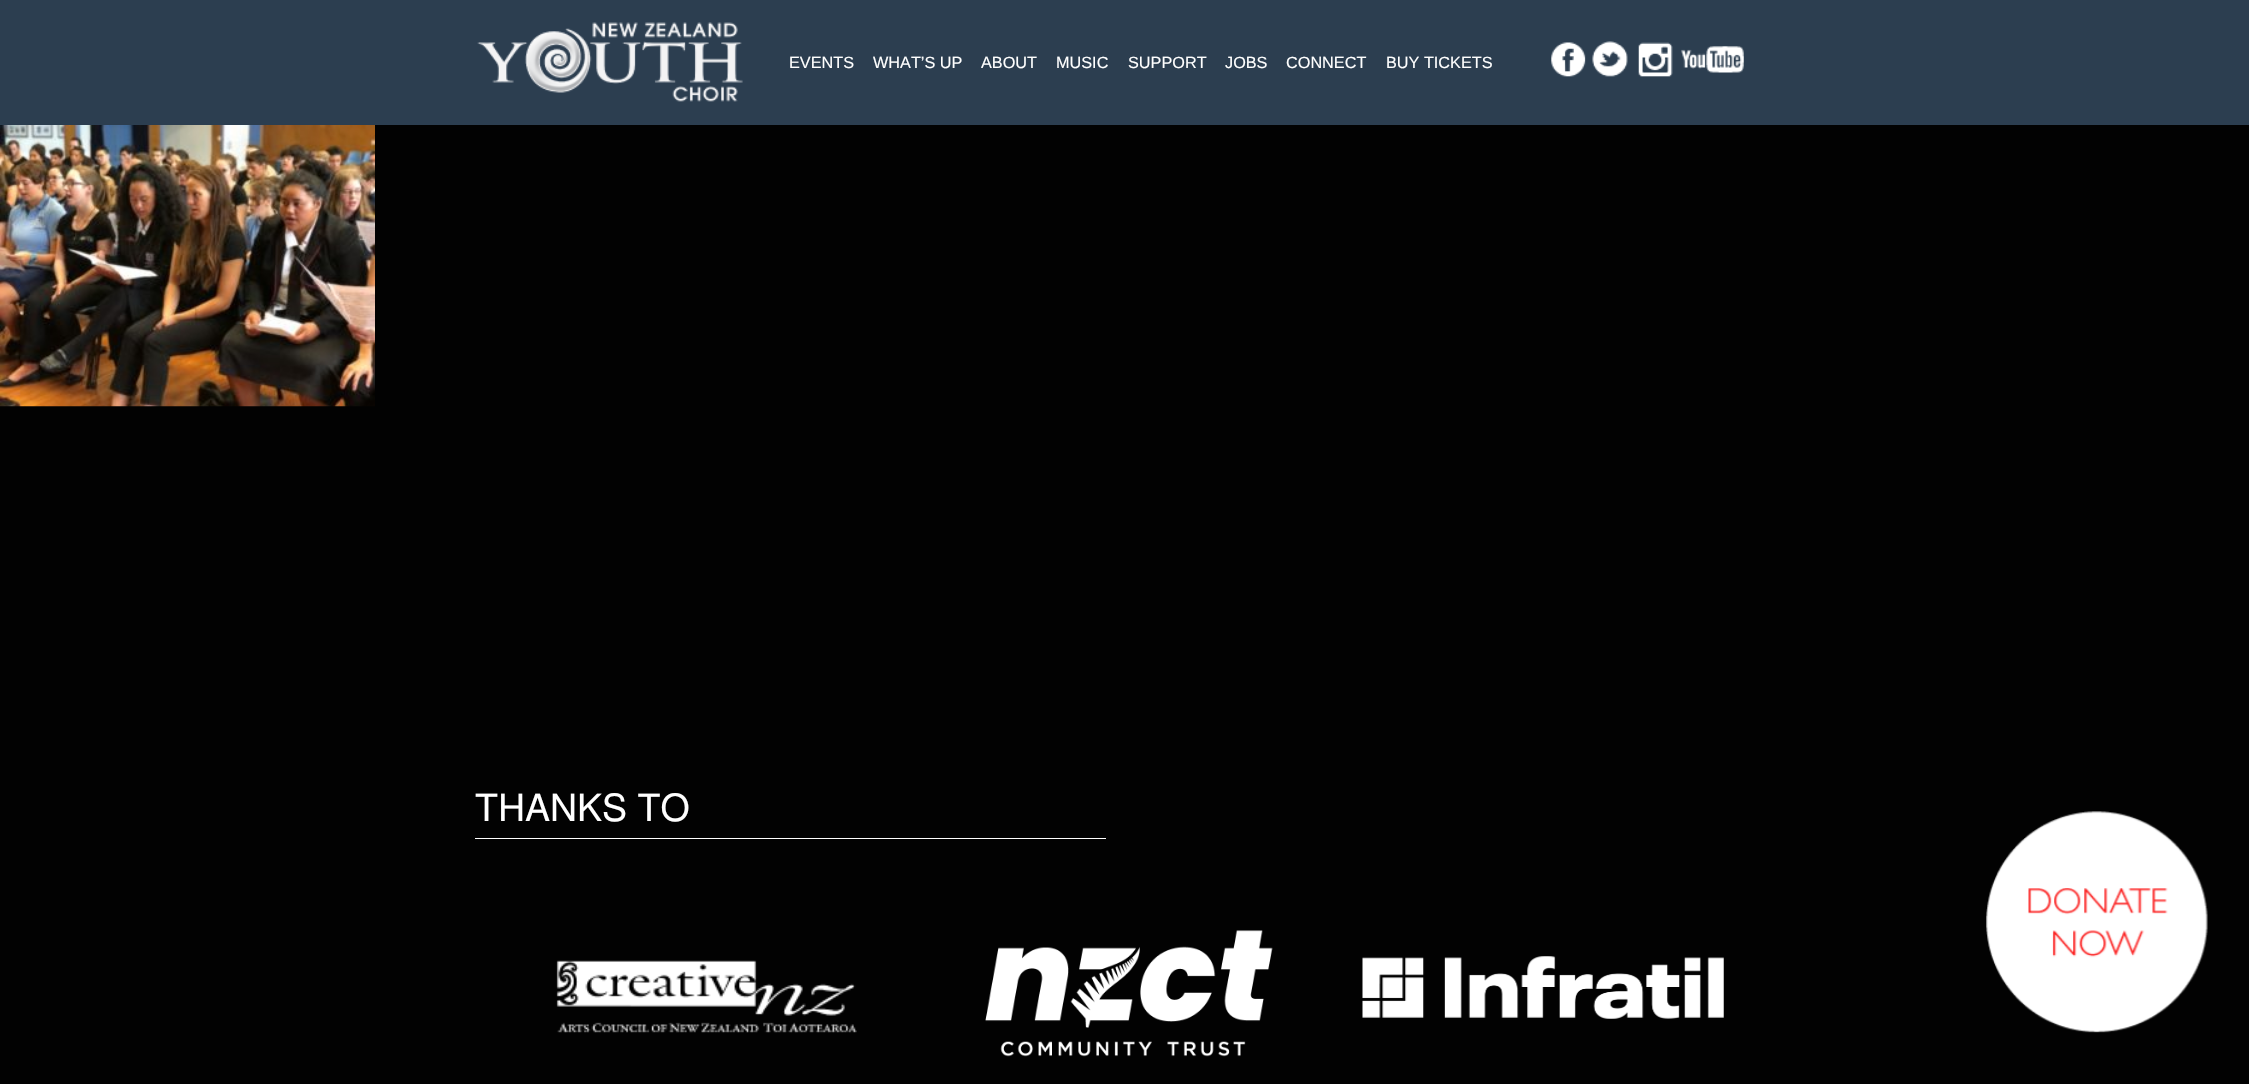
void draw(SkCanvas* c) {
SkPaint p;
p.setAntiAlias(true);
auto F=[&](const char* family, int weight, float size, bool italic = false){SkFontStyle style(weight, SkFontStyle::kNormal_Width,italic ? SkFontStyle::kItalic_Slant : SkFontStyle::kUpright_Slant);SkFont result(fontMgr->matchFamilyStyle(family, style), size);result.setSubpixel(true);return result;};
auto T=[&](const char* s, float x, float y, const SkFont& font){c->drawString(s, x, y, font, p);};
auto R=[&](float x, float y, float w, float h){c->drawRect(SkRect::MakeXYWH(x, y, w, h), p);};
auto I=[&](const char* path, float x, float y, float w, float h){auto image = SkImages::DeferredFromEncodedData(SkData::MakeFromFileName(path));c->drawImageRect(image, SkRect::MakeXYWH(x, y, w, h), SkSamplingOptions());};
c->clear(0xff020202);
p.setColor(0xff2c3e50);
R(0,0,2249,125);
I("1.png",477,22,266,80);
auto f1 = F("Liberation Sans",400,16.25);
p.setColor(0xffffffff);
T("EVENTS",789,68,f1);
T("WHAT’S UP",873,68,f1);
T("ABOUT",981,68,f1);
T("MUSIC",1056,68,f1);
T("SUPPORT",1128,68,f1);
T("JOBS",1225,68,f1);
T("CONNECT",1286,68,f1);
T("BUY TICKETS",1386,68,f1);
I("2.png",1551,42,35,35);
I("3.png",1592,41,36,36);
I("4.png",1638,42,35,35);
I("5.png",1681,46,63,27);
I("6.png",0,125,375,282);
R(475,838,631,1);
auto f2 = F("TeX Gyre Heros",400,37.5);
T("THANKS TO",475,821,f2);
I("7.png",556,960,301,73);
I("8.png",985,930,288,127);
I("9.png",1362,956,362,63);
I("10.png",1986,811,222,222);
}
